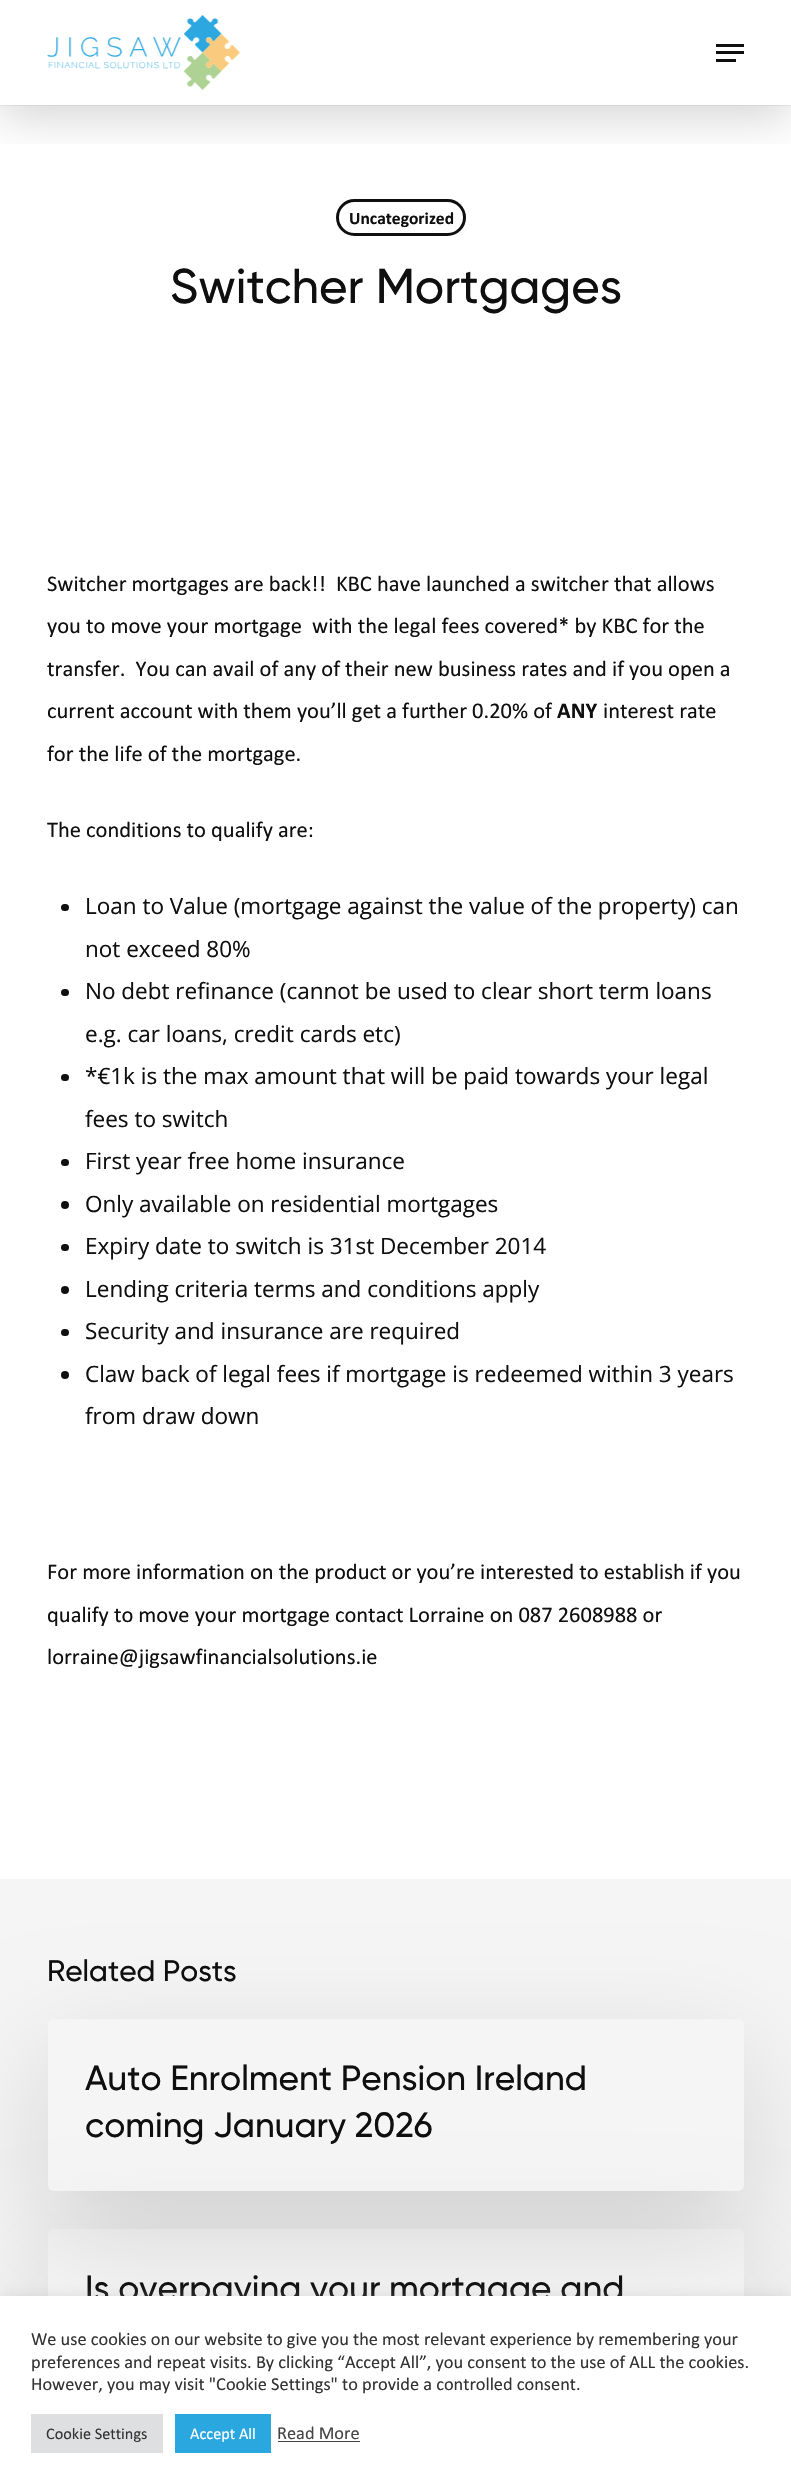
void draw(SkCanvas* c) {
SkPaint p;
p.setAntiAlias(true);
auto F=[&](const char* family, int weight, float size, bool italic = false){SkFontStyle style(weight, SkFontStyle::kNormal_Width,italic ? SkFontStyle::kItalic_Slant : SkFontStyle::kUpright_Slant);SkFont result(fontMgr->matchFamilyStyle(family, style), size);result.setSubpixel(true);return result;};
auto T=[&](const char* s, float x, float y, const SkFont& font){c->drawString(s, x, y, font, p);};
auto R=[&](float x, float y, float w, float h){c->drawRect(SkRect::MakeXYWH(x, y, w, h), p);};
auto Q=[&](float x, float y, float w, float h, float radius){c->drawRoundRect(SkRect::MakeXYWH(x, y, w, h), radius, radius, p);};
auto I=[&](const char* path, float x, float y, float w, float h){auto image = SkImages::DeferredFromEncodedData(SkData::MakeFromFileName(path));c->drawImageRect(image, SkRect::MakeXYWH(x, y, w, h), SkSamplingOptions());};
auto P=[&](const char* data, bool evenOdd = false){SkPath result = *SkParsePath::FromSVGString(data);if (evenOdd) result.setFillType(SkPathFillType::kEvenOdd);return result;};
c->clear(0xffffffff);
p.setColor(0xfff5f5f5);
R(0,1879,791,417);
p.setStroke(true);
p.setStrokeWidth(1);
p.setColor(0xfff0f0f0);
c->drawRect(SkRect::MakeXYWH(-.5,-.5,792,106),p);
c->save();
c->clipRect(SkRect::MakeXYWH(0,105,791,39));
p.setStroke(false);
p.setColor(0x29000000);
p.setMaskFilter(SkMaskFilter::MakeBlur(kNormal_SkBlurStyle, 22.5));
c->drawRect(SkRect::MakeXYWH(0,13,791,105),p);
p.setMaskFilter(nullptr);
c->restore();
I("1.png",47,15,194,75);
p.setColor(0xff0f0f0f);
R(716,44,28,3);
R(716,59,20,3);
R(716,51,28,3);
p.setStroke(true);
p.setStrokeWidth(3);
c->drawRoundRect(SkRect::MakeXYWH(337.5,200.5,127,34),17,17,p);
auto f1 = F("Calibri",700,17.5);
p.setStroke(false);
T("Uncategorized",349,224,f1);
auto f2 = F("Gilroy",500,48.75);
T("Switcher Mortgages",170,303,f2);
auto f3 = F("Calibri",400,22.5);
T("Switcher mortgages are back!!  KBC have launched a switcher that allows",47,591,f3);
T("you to move your mortgage  with the legal fees covered* by KBC for the",47,633,f3);
T("transfer.  You can avail of any of their new business rates and if you open a",47,676,f3);
T("current account with them you’ll get a further 0.20% of",47,718,f3);
auto f4 = F("Calibri",700,22.5);
T("ANY",557,718,f4);
T("interest rate",603,718,f3);
T("for the life of the mortgage.",47,761,f3);
T("The conditions to qualify are:",47,837,f3);
Q(61,904,8,7,3.5);
auto f5 = F("Open Sans",400,22.5);
T("Loan to Value (mortgage against the value of the property) can",85,914,f5);
T("not exceed 80%",85,957,f5);
Q(61,989,8,7,3.5);
T("No debt refinance (cannot be used to clear short term loans",85,999,f5);
T("e.g. car loans, credit cards etc)",85,1042,f5);
Q(61,1074,8,7,3.5);
T("*€1k is the max amount that will be paid towards your legal",85,1084,f5);
T("fees to switch",85,1127,f5);
Q(61,1159,8,7,3.5);
T("First year free home insurance",85,1169,f5);
c->drawCircle(65,1205,4,p);
T("Only available on residential mortgages",85,1212,f5);
Q(61,1244,8,7,3.5);
T("Expiry date to switch is 31st December 2014",85,1254,f5);
c->drawCircle(65,1290,4,p);
T("Lending criteria terms and conditions apply",85,1297,f5);
Q(61,1329,8,7,3.5);
T("Security and insurance are required",85,1339,f5);
c->drawCircle(65,1375,4,p);
T("Claw back of legal fees if mortgage is redeemed within 3 years",85,1382,f5);
T("from draw down",85,1424,f5);
T("For more information on the product or you’re interested to establish if you",47,1579,f3);
T("qualify to move your mortgage contact Lorraine on 087 2608988 or",47,1622,f3);
T("lorraine@jigsawfinancialsolutions.ie",47,1664,f3);
auto f6 = F("Gilroy",500,29.75);
T("Related Posts",47,1981,f6);
c->save();
c->clipPath(P("M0 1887h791v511h-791zm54 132h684c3.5 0 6 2.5 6 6v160c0 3.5-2.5 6-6 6h-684c-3.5 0-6-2.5-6-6v-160c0-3.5 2.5-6 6-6z",true),true);
p.setColor(0x24000000);
p.setMaskFilter(SkMaskFilter::MakeBlur(kNormal_SkBlurStyle, 56));
c->drawRoundRect(SkRect::MakeXYWH(48,2056,696,173),6,6,p);
p.setMaskFilter(nullptr);
c->restore();
auto f7 = F("Gilroy",500,35);
p.setColor(0xff0f0f0f);
T("Auto Enrolment Pension Ireland",85,2090,f7);
T("coming January 2026",85,2137,f7);
c->save();
c->clipPath(P("M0 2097h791v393h-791zm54 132h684c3.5 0 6 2.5 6 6v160c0 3.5-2.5 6-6 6h-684c-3.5 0-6-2.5-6-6v-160c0-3.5 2.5-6 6-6z",true),true);
p.setColor(0x24000000);
p.setMaskFilter(SkMaskFilter::MakeBlur(kNormal_SkBlurStyle, 56));
c->drawRoundRect(SkRect::MakeXYWH(48,2266,696,173),6,6,p);
p.setMaskFilter(nullptr);
c->restore();
p.setColor(0xff0f0f0f);
T("Is overpaying your mortgage and",85,2300,f7);
p.setColor(0x4dacabab);
p.setMaskFilter(SkMaskFilter::MakeBlur(kNormal_SkBlurStyle, 6));
c->drawRect(SkRect::MakeXYWH(0,2295,791,194),p);
p.setMaskFilter(nullptr);
p.setColor(0xffffffff);
R(0,2296,791,194);
auto f8 = F("Calibri",400,18.35);
p.setColor(0xff333333);
T("We use cookies on our website to give you the most relevant experience by remembering your",31,2345,f8);
T("preferences and repeat visits. By clicking “Accept All”, you consent to the use of ALL the cookies.",31,2368,f8);
T("However, you may visit \"Cookie Settings\" to provide a controlled consent.",31,2390,f8);
p.setColor(0xffdedfe0);
R(31,2414,132,39);
auto f9 = F("Calibri",400,16.25);
p.setColor(0xff333333);
T("Cookie Settings",46,2439,f9);
p.setColor(0xff2ba7e0);
R(175,2414,96,39);
p.setColor(0xffffffff);
T("Accept All",190,2439,f9);
p.setColor(0xff444444);
T("Read More",277,2439,f8);
R(278,2441,82,1);
}
